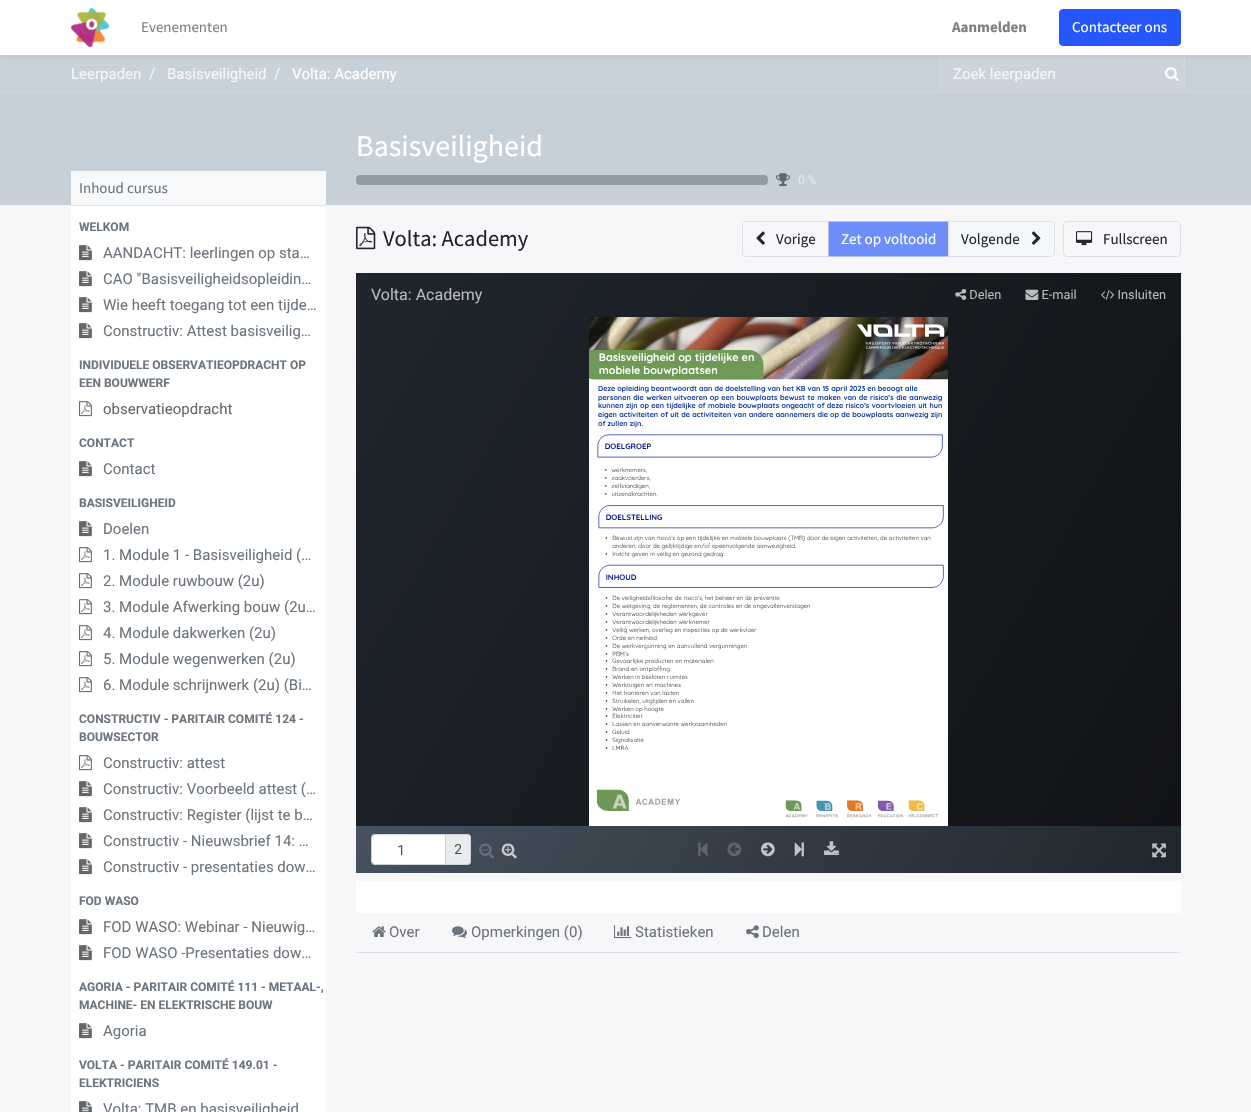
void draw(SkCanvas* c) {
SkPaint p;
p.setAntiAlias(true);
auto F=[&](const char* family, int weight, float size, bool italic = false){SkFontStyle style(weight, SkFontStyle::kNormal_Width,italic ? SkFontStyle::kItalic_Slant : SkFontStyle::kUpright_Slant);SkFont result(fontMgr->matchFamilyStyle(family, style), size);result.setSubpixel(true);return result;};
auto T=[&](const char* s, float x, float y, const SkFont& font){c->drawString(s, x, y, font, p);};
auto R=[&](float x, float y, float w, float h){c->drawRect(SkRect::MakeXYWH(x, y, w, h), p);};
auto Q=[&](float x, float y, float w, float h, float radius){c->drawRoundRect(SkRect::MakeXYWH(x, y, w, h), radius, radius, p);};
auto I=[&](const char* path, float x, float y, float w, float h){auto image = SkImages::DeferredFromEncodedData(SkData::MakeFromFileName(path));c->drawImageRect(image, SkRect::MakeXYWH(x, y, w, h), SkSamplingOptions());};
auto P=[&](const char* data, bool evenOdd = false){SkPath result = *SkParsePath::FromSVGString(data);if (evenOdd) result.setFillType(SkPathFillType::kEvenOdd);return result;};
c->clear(0xfff7f7fa);
p.setColor(0xffc8d2db);
R(0,56,1251,36);
p.setColor(0xffced7df);
R(0,55,1251,1);
p.setColor(0xffcbd4dd);
R(941,56,243,36);
p.setColor(0xffd0d8e0);
R(1184,56,1,36);
R(940,56,1,36);
p.setColor(0x12000000);
p.setMaskFilter(SkMaskFilter::MakeBlur(kNormal_SkBlurStyle, 2));
c->drawRect(SkRect::MakeXYWH(0,2,1251,55),p);
p.setMaskFilter(nullptr);
p.setColor(0xffffffff);
R(0,0,1251,55);
I("1.png",71,8,38,39);
auto f1 = F("Source Sans Pro",400,15);
p.setColor(0xff808080);
T("Evenementen",141,32,f1);
auto f2 = F("Source Sans Pro",700,15);
T("Aanmelden",952,32,f2);
p.setColor(0xff2456f9);
c->drawRoundRect(SkRect::MakeXYWH(1059.5,9.5,121,36),3.5,3.5,p);
p.setStroke(true);
p.setStrokeWidth(1);
c->drawRoundRect(SkRect::MakeXYWH(1059.5,9.5,121,36),3.5,3.5,p);
p.setStroke(false);
p.setColor(0xffffffff);
T("Contacteer ons",1072,32,f1);
p.setColor(0xffc5d0d9);
R(0,93,1251,112);
p.setColor(0xffced7df);
R(0,92,1251,1);
auto f3 = F("Roboto",400,15);
p.setColor(0xfff4f6f8);
T("Leerpaden",71,79,f3);
T("/",149,79,f3);
T("Basisveiligheid",167,79,f3);
T("/",274,79,f3);
p.setColor(0xffffffff);
T("Volta: Academy",292,79,f3);
p.setColor(0xfff4f6f8);
T("Zoek leerpaden",953,79,f3);
I("2.png",1165,67,14,14);
auto f4 = F("Source Sans Pro",400,30);
p.setColor(0xffffffff);
T("Basisveiligheid",356,156,f4);
p.setColor(0xff949ca3);
Q(356,175,412,10,4);
I("3.png",776,173,14,14);
auto f5 = F("Roboto",400,12);
p.setColor(0xffe2e8ec);
T("0 %",798,184,f5);
p.setColor(0xffffffff);
R(71,206,255,906);
p.setColor(0xfff8f9fa);
R(71,171,255,34);
p.setColor(0xffdee2e6);
R(71,205,255,1);
p.setColor(0xff6c757d);
T("Inhoud cursus",79,193,f1);
auto f6 = F("Roboto",700,12);
T("WELKOM",79,231,f6);
I("4.png",79,245,13,16);
T("AANDACHT: leerlingen op sta…",103,258,f3);
I("4.png",79,271,13,16);
T("CAO \"Basisveiligheidsopleidin…",103,284,f3);
I("4.png",79,297,13,16);
T("Wie heeft toegang tot een tijde…",103,310,f3);
I("4.png",79,323,13,16);
T("Constructiv: Attest basisveilig…",103,336,f3);
T("INDIVIDUELE OBSERVATIEOPDRACHT OP",79,369,f6);
T("EEN BOUWWERF",79,387,f6);
I("5.png",79,401,13,16);
p.setColor(0xff646669);
T("observatieopdracht",103,414,f3);
p.setColor(0xff6c757d);
T("CONTACT",79,447,f6);
I("4.png",79,461,13,16);
T("Contact",103,474,f3);
T("BASISVEILIGHEID",79,507,f6);
I("4.png",79,521,13,16);
T("Doelen",103,534,f3);
I("5.png",79,547,13,16);
T("1. Module 1 - Basisveiligheid (…",103,560,f3);
I("5.png",79,573,13,16);
T("2. Module ruwbouw (2u)",103,586,f3);
I("5.png",79,599,13,16);
T("3. Module Afwerking bouw (2u…",103,612,f3);
I("5.png",79,625,13,16);
T("4. Module dakwerken (2u)",103,638,f3);
I("5.png",79,651,13,16);
T("5. Module wegenwerken (2u)",103,664,f3);
I("5.png",79,677,13,16);
T("6. Module schrijnwerk (2u) (Bi…",103,690,f3);
T("CONSTRUCTIV - PARITAIR COMITÉ 124 -",79,723,f6);
T("BOUWSECTOR",79,741,f6);
I("5.png",79,755,13,16);
T("Constructiv: attest",103,768,f3);
I("4.png",79,781,13,16);
T("Constructiv: Voorbeeld attest (…",103,794,f3);
I("4.png",79,807,13,16);
T("Constructiv: Register (lijst te b…",103,820,f3);
I("4.png",79,833,13,16);
T("Constructiv - Nieuwsbrief 14: …",103,846,f3);
I("4.png",79,859,13,16);
T("Constructiv - presentaties dow…",103,872,f3);
T("FOD WASO",79,905,f6);
I("4.png",79,919,13,16);
T("FOD WASO: Webinar - Nieuwig…",103,932,f3);
I("4.png",79,945,13,16);
T("FOD WASO -Presentaties dow…",103,958,f3);
T("AGORIA - PARITAIR COMITÉ 111 - METAAL-,",79,991,f6);
T("MACHINE- EN ELEKTRISCHE BOUW",79,1009,f6);
I("4.png",79,1023,13,16);
T("Agoria",103,1036,f3);
T("VOLTA - PARITAIR COMITÉ 149.01 -",79,1069,f6);
T("ELEKTRICIENS",79,1087,f6);
I("6.png",79,1101,13,11);
T("Volta: TMB en basisveiligheid",103,1114,f3);
I("7.png",356,226,20,24);
auto f7 = F("Source Sans Pro",400,22.5);
p.setColor(0xff212529);
T("Volta: Academy",383,246,f7);
p.setStroke(true);
p.setColor(0xffdee2e6);
c->drawPath(P("M746 221.5h82.5v35h-82.5c-2 0-3.5-1.5-3.5-3.5v-28c0-2 1.5-3.5 3.5-3.5z"),p);
I("8.png",756,231,9,14);
p.setStroke(false);
p.setColor(0xff212529);
T("Vorige",776,244,f1);
p.setColor(0xa62456f9);
R(828,221,120,36);
p.setStroke(true);
p.setColor(0xa6dee2e6);
c->drawRect(SkRect::MakeXYWH(828.5,221.5,120,35),p);
p.setStroke(false);
p.setColor(0xffffffff);
T("Zet op voltooid",841,244,f1);
p.setColor(0xfff6f7f8);
c->drawPath(P("M948.5 221.5h102.5c2 0 3.5 1.5 3.5 3.5v28c0 2-1.5 3.5-3.5 3.5h-102.5z"),p);
p.setStroke(true);
p.setColor(0xffdee2e6);
c->drawPath(P("M948.5 221.5h102.5c2 0 3.5 1.5 3.5 3.5v28c0 2-1.5 3.5-3.5 3.5h-102.5z"),p);
p.setStroke(false);
p.setColor(0xff212529);
T("Volgende",961,244,f1);
I("9.png",1031,231,10,14);
p.setStroke(true);
p.setColor(0xffdee2e6);
c->drawRoundRect(SkRect::MakeXYWH(1063.5,221.5,117,35),3.5,3.5,p);
I("10.png",1076,231,17,15);
p.setStroke(false);
p.setColor(0xff212529);
T("Fullscreen",1103,244,f1);
I("11.png",356,273,825,600);
p.setColor(0xffffffff);
R(356,881,825,32);
p.setColor(0xffdee2e6);
R(356,952,825,1);
I("12.png",372,926,14,11);
p.setColor(0xff6c757d);
T("Over",389,937,f3);
I("13.png",452,926,15,12);
T("Opmerkingen (0)",471,937,f3);
I("14.png",614,925,18,14);
T("Statistieken",635,937,f3);
I("15.png",746,925,13,13);
T("Delen",762,937,f3);
}
